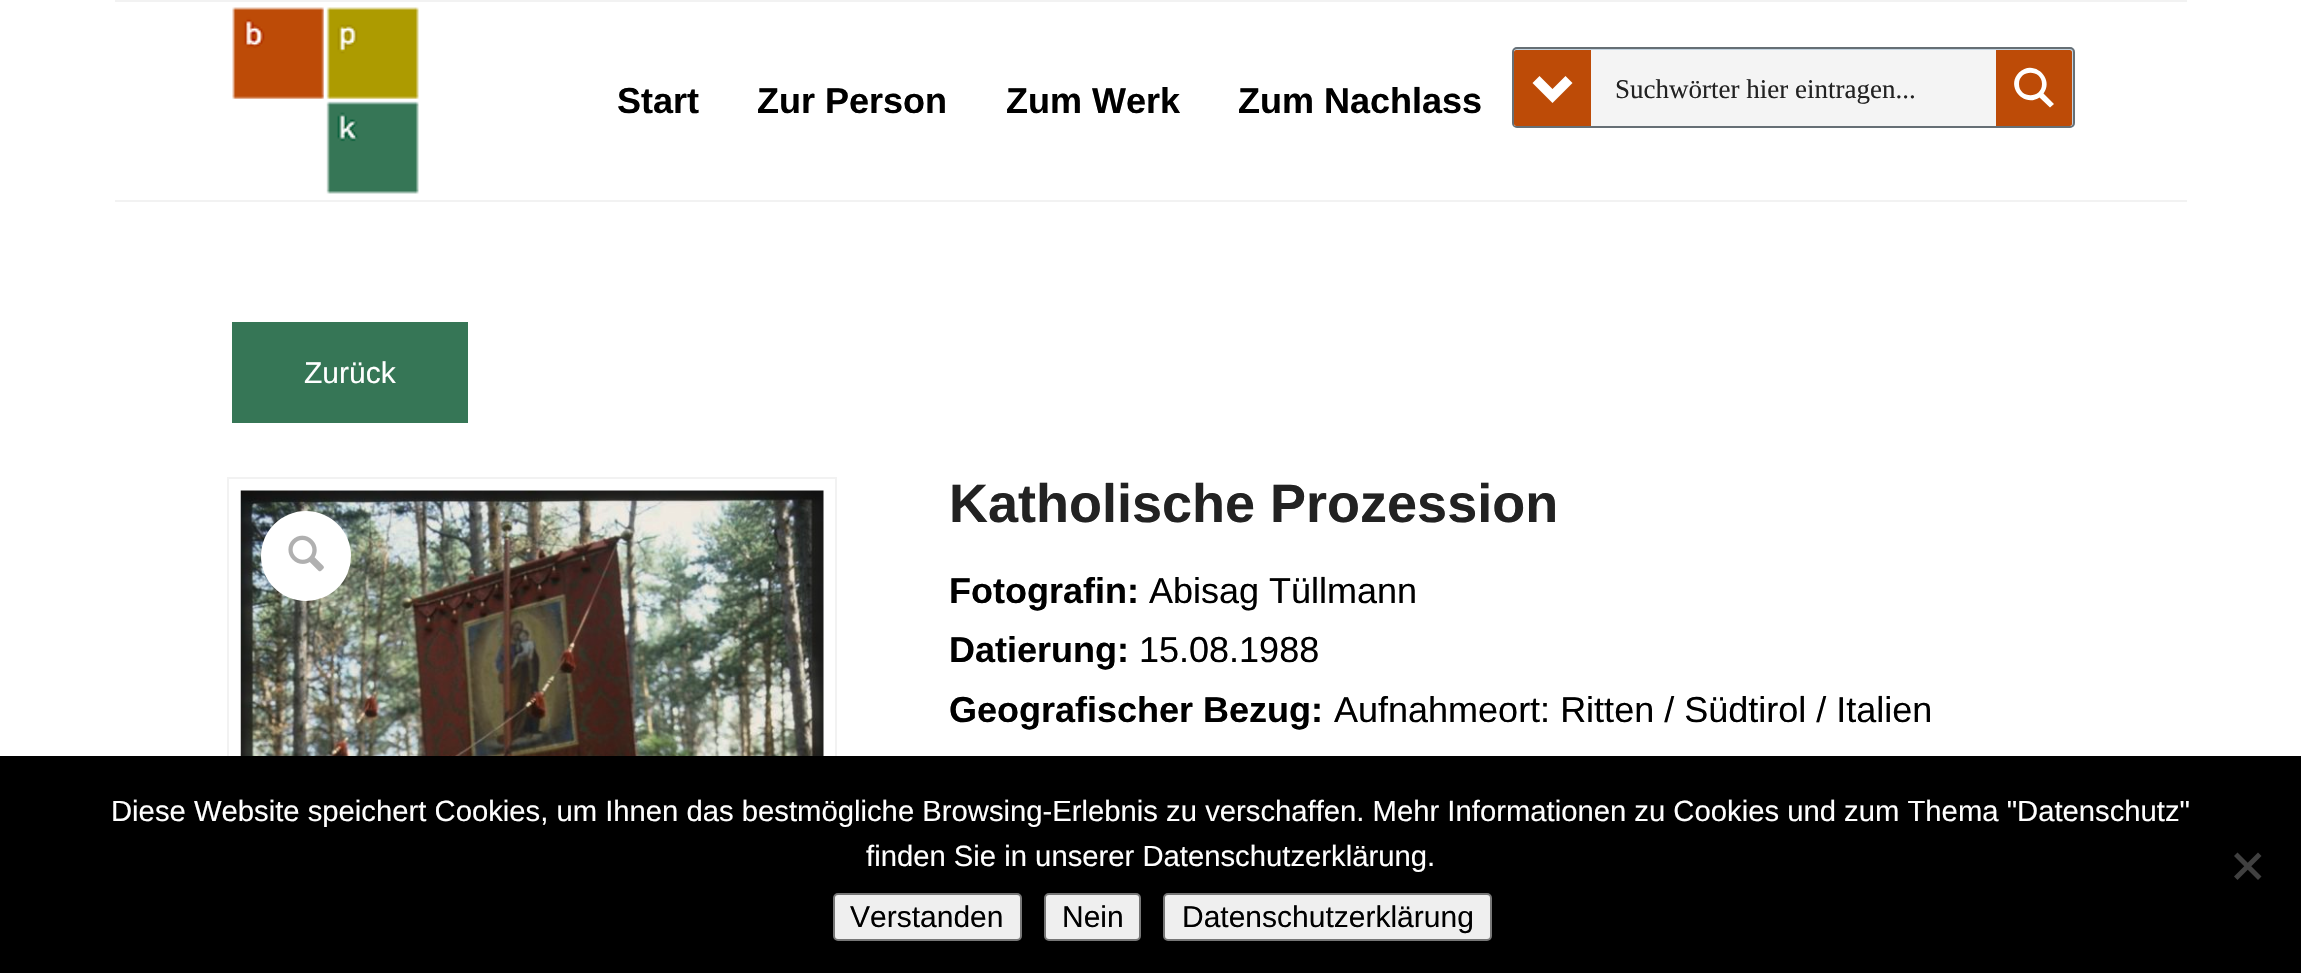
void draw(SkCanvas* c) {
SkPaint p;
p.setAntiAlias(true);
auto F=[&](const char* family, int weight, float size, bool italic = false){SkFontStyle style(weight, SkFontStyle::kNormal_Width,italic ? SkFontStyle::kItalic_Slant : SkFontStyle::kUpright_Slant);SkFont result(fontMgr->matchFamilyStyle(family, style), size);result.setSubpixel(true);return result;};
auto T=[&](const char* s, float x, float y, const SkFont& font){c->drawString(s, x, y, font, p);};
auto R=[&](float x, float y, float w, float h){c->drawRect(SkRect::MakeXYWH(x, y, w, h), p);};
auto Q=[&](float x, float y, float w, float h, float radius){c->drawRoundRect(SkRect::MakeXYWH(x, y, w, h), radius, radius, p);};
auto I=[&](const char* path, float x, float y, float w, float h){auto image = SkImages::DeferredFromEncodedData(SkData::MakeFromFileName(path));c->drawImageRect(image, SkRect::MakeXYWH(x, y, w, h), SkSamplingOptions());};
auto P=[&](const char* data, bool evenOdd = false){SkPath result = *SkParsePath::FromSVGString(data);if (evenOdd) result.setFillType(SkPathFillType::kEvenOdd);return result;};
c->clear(0xffffffff);
p.setColor(0xfff2f2f2);
R(115,0,2072,2);
R(115,200,2072,2);
I("1.png",232,7,187,187);
auto f1 = F("Liberation Sans",700,36);
p.setColor(0xff000000);
T("Start",617,113,f1);
T("Zur Person",757,113,f1);
T("Zum Werk",1006,113,f1);
T("Zum Nachlass",1238,113,f1);
p.setColor(0xffd1eaff);
Q(1512,47,563,81,5);
p.setColor(0x61b1b1b1);
Q(1512,47,563,81,5);
p.setStroke(true);
p.setStrokeWidth(2);
p.setColor(0x7a000000);
c->drawRoundRect(SkRect::MakeXYWH(1513,48,561,79),4,4,p);
p.setStroke(false);
p.setColor(0xffffffff);
Q(1514,50,558,76,2);
p.setColor(0x17838687);
Q(1514,50,558,76,2);
p.setColor(0xffbd4b07);
c->drawPath(P("M1516 50h75v76h-75c-1 0-2-1-2-2v-72c0-1 1-2 2-2z"),p);
p.setColor(0xffffffff);
c->drawPath(P("M1532.5 83l7-7l13 13l13-13l7 7l-20 20z"),p);
auto f2 = F("Liberation Serif",400,27);
p.setColor(0xff222222);
T("Suchwörter hier eintragen...",1615,98,f2);
p.setColor(0xffbd4b07);
c->drawPath(P("M1996 50h74c1 0 2 1 2 2v72c0 1-1 2-2 2h-74z"),p);
p.setColor(0xffffffff);
c->drawPath(P("M2054 104l-10.5-10.5c11.5-15.5-10.5-35-24.5-21c-14 14 5 35.5 20.5 25l10.5 10zm-35-20c0-15 23-15 23 0c0 15-23 15-23 0z"),p);
p.setColor(0xff367656);
R(232,322,236,101);
auto f3 = F("Liberation Sans",400,30);
p.setColor(0xffffffff);
T("Zurück",304,383,f3);
p.setStroke(true);
p.setColor(0xfff2f2f2);
c->drawRect(SkRect::MakeXYWH(228,478,608,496),p);
I("2.png",240,490,584,266);
p.setStroke(false);
p.setColor(0xffffffff);
c->drawCircle(306,556,45,p);
I("3.png",288,535,36,37);
auto f4 = F("Liberation Sans",700,54);
p.setColor(0xff222222);
T("Katholische Prozession",949,522,f4);
p.setColor(0xff000000);
T("Fotografin:",949,603,f1);
auto f5 = F("Liberation Sans",400,36);
T("Abisag Tüllmann",1149,603,f5);
T("Datierung:",949,662,f1);
T("15.08.1988",1139,662,f5);
T("Geografischer Bezug:",949,722,f1);
T("Aufnahmeort: Ritten / Südtirol / Italien",1334,722,f5);
R(0,756,2301,217);
auto f6 = F("Liberation Sans",400,29.25);
p.setColor(0xffffffff);
T("Diese Website speichert Cookies, um Ihnen das bestmögliche Browsing-Erlebnis zu verschaffen. Mehr Informationen zu Cookies und zum Thema \"Datenschutz\"",111,821,f6);
T("finden Sie in unserer Datenschutzerklärung.",866,866,f6);
p.setColor(0xff404040);
c->drawPath(P("M2258 852.5l3.5 3.5l-24 24l-3.5-3.5z"),p);
c->drawPath(P("M2234 856l3.5-3.5l24 24l-3.5 3.5z"),p);
p.setColor(0xffefefef);
c->drawRoundRect(SkRect::MakeXYWH(834,894,187,46),4,4,p);
p.setStroke(true);
p.setColor(0xff767676);
c->drawRoundRect(SkRect::MakeXYWH(834,894,187,46),4,4,p);
p.setStroke(false);
p.setColor(0xff000000);
T("Verstanden",850,927,f3);
p.setColor(0xffefefef);
c->drawRoundRect(SkRect::MakeXYWH(1045,894,95,46),4,4,p);
p.setStroke(true);
p.setColor(0xff767676);
c->drawRoundRect(SkRect::MakeXYWH(1045,894,95,46),4,4,p);
p.setStroke(false);
p.setColor(0xff000000);
T("Nein",1062,927,f3);
p.setColor(0xffefefef);
c->drawRoundRect(SkRect::MakeXYWH(1164,894,327,46),4,4,p);
p.setStroke(true);
p.setColor(0xff767676);
c->drawRoundRect(SkRect::MakeXYWH(1164,894,327,46),4,4,p);
p.setStroke(false);
p.setColor(0xff000000);
T("Datenschutzerklärung",1182,927,f3);
}
